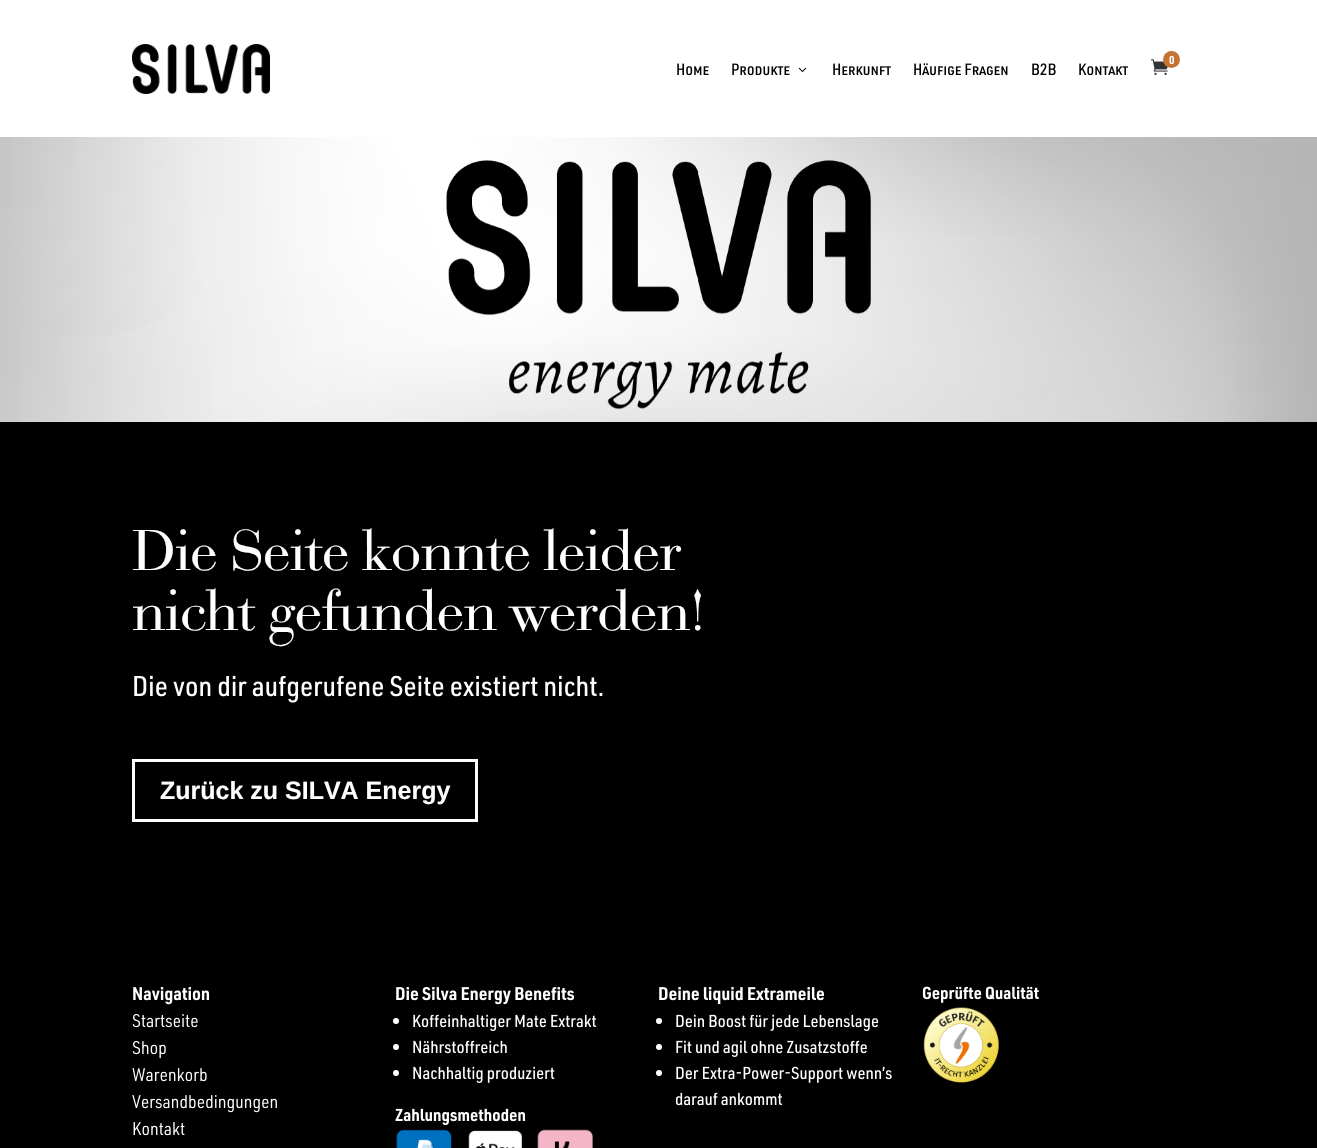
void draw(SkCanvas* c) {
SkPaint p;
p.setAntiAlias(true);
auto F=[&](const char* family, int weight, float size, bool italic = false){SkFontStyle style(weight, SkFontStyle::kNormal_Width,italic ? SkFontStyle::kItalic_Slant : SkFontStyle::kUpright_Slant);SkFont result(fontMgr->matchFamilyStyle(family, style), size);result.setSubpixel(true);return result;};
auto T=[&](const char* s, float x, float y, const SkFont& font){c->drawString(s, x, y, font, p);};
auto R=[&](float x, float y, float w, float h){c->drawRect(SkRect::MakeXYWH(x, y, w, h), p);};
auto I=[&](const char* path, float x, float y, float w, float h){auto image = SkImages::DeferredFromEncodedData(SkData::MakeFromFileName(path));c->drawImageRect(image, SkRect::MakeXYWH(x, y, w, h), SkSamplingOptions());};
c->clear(0xffffffff);
I("1.png",132,44,138,50);
I("2.png",677,63,32,13);
I("3.png",732,63,58,13);
I("4.png",798,67,9,5);
I("5.png",833,63,58,13);
I("6.png",914,63,94,13);
I("7.png",1032,63,24,12);
I("8.png",1079,63,49,13);
I("9.png",1151,59,17,16);
p.setColor(0xffc37433);
c->drawCircle(1171.5,59.5,8.5,p);
I("10.png",1169,55,5,10);
I("11.png",0,137,1317,285);
I("12.png",445,137,872,285);
p.setColor(0xff000000);
R(0,422,1317,726);
auto f1 = F("Bodoni",400,60);
p.setColor(0xffffffff);
T("Die Seite konnte leider",132,570,f1);
T("nicht gefunden werden!",132,630,f1);
I("13.png",134,675,469,28);
p.setStroke(true);
p.setStrokeWidth(3);
c->drawRect(SkRect::MakeXYWH(133.5,760.5,343,60),p);
auto f2 = F("Liberation Sans",700,25);
p.setStroke(false);
T("Zurück zu SILVA Energy",160,799,f2);
I("14.png",133,987,77,18);
I("15.png",132,1014,66,14);
I("16.png",132,1041,34,18);
I("17.png",132,1068,75,14);
I("18.png",132,1095,145,18);
I("19.png",133,1122,52,14);
I("20.png",396,987,179,18);
c->drawCircle(396,1021,3,p);
I("21.png",413,1014,183,17);
c->drawCircle(396,1047,3,p);
I("22.png",413,1040,94,14);
c->drawCircle(396,1073,3,p);
I("23.png",413,1066,142,17);
I("24.png",395,1108,131,17);
I("25.png",396,1129,197,19);
I("26.png",659,987,165,18);
c->drawCircle(659,1021,3,p);
I("27.png",676,1014,203,17);
c->drawCircle(659,1047,3,p);
I("28.png",676,1040,191,17);
c->drawCircle(659,1073,3,p);
I("29.png",676,1066,216,17);
I("30.png",675,1092,107,14);
I("31.png",922,986,117,17);
I("32.png",923,1007,76,76);
}
